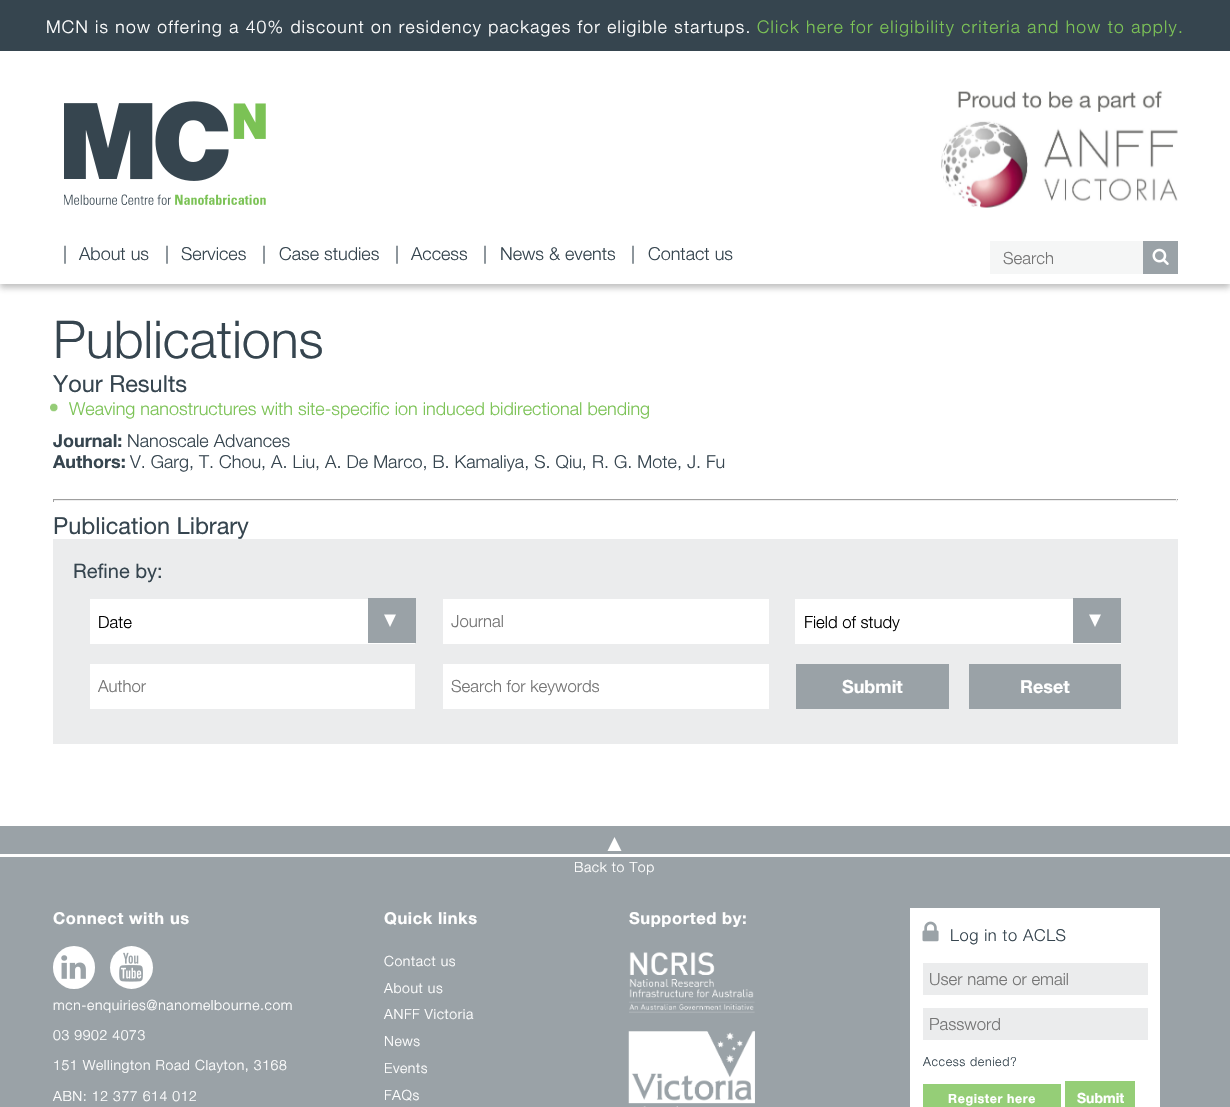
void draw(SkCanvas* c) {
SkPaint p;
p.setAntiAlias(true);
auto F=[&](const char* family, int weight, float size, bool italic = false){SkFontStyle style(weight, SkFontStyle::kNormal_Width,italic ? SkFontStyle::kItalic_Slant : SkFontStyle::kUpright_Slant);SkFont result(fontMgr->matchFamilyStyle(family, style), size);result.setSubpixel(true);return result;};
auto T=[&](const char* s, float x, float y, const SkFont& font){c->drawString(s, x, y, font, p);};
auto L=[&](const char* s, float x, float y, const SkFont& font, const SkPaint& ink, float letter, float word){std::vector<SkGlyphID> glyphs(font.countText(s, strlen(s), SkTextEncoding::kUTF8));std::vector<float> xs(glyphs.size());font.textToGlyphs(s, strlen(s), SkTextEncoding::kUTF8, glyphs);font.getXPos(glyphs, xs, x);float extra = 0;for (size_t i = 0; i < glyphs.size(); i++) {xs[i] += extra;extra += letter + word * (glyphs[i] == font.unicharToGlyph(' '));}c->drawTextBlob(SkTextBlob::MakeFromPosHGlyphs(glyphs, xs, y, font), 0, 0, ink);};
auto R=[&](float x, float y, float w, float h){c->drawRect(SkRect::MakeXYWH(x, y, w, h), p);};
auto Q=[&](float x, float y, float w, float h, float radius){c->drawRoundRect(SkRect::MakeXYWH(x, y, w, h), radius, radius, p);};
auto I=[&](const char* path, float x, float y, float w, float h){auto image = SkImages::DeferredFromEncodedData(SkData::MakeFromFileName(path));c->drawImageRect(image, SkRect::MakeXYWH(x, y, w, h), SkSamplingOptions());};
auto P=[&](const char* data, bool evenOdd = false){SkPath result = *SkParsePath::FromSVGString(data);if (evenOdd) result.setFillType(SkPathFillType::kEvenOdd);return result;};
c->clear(0xff9aa2a7);
p.setColor(0xffffffff);
R(0,284,1230,542);
p.setColor(0x4d323232);
p.setMaskFilter(SkMaskFilter::MakeBlur(kNormal_SkBlurStyle, 3));
c->drawRect(SkRect::MakeXYWH(0,4,1230,284),p);
p.setMaskFilter(nullptr);
p.setColor(0xffffffff);
R(0,51,1230,233);
p.setColor(0xff36454f);
R(0,0,1230,51);
auto f1 = F("Helvetica Neue",300,17.5);
p.setColor(0xffffffff);
L("MCN is now offering a 40% discount on residency packages for eligible startups.",46,33,f1,p,1.25,0);
p.setColor(0xff7cc356);
L("Click here for eligibility criteria and how to apply.",757,33,f1,p,1.25,0);
I("1.png",64,101,202,104);
I("2.png",941,90,237,118);
auto f2 = F("Helvetica Neue",300,18);
p.setColor(0xff36454f);
T("|",63,260,f2);
T("About us",79,260,f2);
T("|",165,260,f2);
T("Services",181,260,f2);
T("|",262,260,f2);
T("Case studies",279,260,f2);
T("|",395,260,f2);
T("Access",411,260,f2);
T("|",483,260,f2);
T("News & events",500,260,f2);
T("|",631,260,f2);
T("Contact us",648,260,f2);
p.setColor(0xfff5f6f6);
R(990,241,153,33);
auto f3 = F("Helvetica Neue",300,16.75);
p.setColor(0xff757575);
T("Search",1003,264,f3);
p.setColor(0xff9aa2a7);
R(1143,241,35,33);
I("3.png",1152,248,17,17);
auto f4 = F("Helvetica Neue",300,52);
p.setColor(0xff36454f);
T("Publications",53,358,f4);
auto f5 = F("Helvetica Neue",400,23.5);
T("Your Results",53,392,f5);
I("4.png",50,403,8,9);
p.setColor(0xff7cc356);
T("Weaving nanostructures with site-specific ion induced bidirectional bending",69,415,f2);
auto f6 = F("Helvetica Neue",700,18);
p.setColor(0xff36454f);
T("Journal:",53,447,f6);
T("Nanoscale Advances",127,447,f2);
T("Authors:",53,468,f6);
T("V. Garg, T. Chou, A. Liu, A. De Marco, B. Kamaliya, S. Qiu, R. G. Mote, J. Fu",130,468,f2);
p.setColor(0xff9f9f9f);
R(53,499,1125,1);
p.setColor(0xffeeeeee);
R(1176,499,1,3);
R(53,500,1125,1);
p.setColor(0xff9f9f9f);
R(53,499,1,3);
p.setColor(0xff36454f);
T("Publication Library",53,534,f5);
p.setColor(0xffebeced);
R(53,539,1125,205);
auto f7 = F("Helvetica Neue",400,20);
p.setColor(0xff36454f);
T("Refine by:",73,578,f7);
p.setColor(0xffffffff);
R(90,599,325,45);
p.setColor(0xff000000);
T("Date",98,628,f3);
p.setColor(0xff9aa2a7);
R(368,598,48,45);
p.setColor(0xffffffff);
c->drawPath(P("M396 614.5l-6 12.5l-6-12.5z"),p);
R(90,664,325,45);
p.setColor(0xff757575);
T("Author",98,692,f3);
p.setColor(0xffffffff);
R(443,599,326,45);
p.setColor(0xff757575);
T("Journal",451,627,f3);
p.setColor(0xffffffff);
R(443,664,326,45);
p.setColor(0xff757575);
T("Search for keywords",451,692,f3);
p.setColor(0xffffffff);
R(795,599,326,45);
p.setColor(0xff000000);
T("Field of study",804,628,f3);
p.setColor(0xff9aa2a7);
R(1073,598,48,45);
p.setColor(0xffffffff);
c->drawPath(P("M1101 614.5l-6 12.5l-6-12.5z"),p);
p.setColor(0xff9aa2a7);
R(796,664,153,45);
p.setColor(0xffffffff);
T("Submit",842,693,f6);
p.setColor(0xff9aa2a7);
R(969,664,152,45);
p.setColor(0xffffffff);
T("Reset",1020,693,f6);
R(0,854,1230,3);
c->drawPath(P("M607.5 851l7-14l7 14z"),p);
auto f8 = F("Helvetica Neue",300,14);
L("Back to Top",574,872,f8,p,.6,0);
auto f9 = F("Helvetica Neue",700,16.5);
L("Connect with us",53,924,f9,p,.6,0);
Q(53,946,42,43,21);
I("5.png",61,955,25,24);
c->drawCircle(131.5,967.5,21.5,p);
I("6.png",119,952,24,30);
L("mcn-enquiries@nanomelbourne.com",53,1010,f8,p,.6,0);
L("03 9902 4073",53,1040,f8,p,.6,0);
L("151 Wellington Road Clayton, 3168",53,1070,f8,p,.6,0);
L("ABN: 12 377 614 012",53,1101,f8,p,.6,0);
L("Quick links",384,924,f9,p,.6,0);
L("Contact us",384,966,f8,p,.6,0);
L("About us",384,993,f8,p,.6,0);
L("ANFF Victoria",384,1019,f8,p,.6,0);
L("News",384,1046,f8,p,.6,0);
L("Events",384,1073,f8,p,.6,0);
L("FAQs",384,1100,f8,p,.6,0);
L("Supported by:",629,924,f9,p,.6,0);
I("7.png",629,952,126,61);
I("8.png",628,1031,127,76);
R(910,908,250,199);
I("9.png",922,921,17,21);
auto f10 = F("Helvetica Neue",300,16.5);
p.setColor(0xff36454f);
L("Log in to ACLS",950,941,f10,p,.6,0);
p.setColor(0xffebeced);
R(923,963,225,32);
p.setColor(0xff757575);
T("User name or email",929,985,f3);
p.setColor(0xffebeced);
R(923,1008,225,32);
p.setColor(0xff757575);
T("Password",929,1030,f3);
auto f11 = F("Helvetica Neue",300,12.5);
p.setColor(0xff36454f);
L("Access denied?",923,1066,f11,p,.6,0);
p.setColor(0xff95ce77);
R(923,1084,138,23);
auto f12 = F("Helvetica Neue",700,12.5);
p.setColor(0xffffffff);
L("Register here",948,1103,f12,p,.6,0);
p.setColor(0xff95ce77);
R(1065,1081,70,26);
auto f13 = F("Helvetica Neue",700,14);
p.setColor(0xffffffff);
T("Submit",1077,1103,f13);
}
